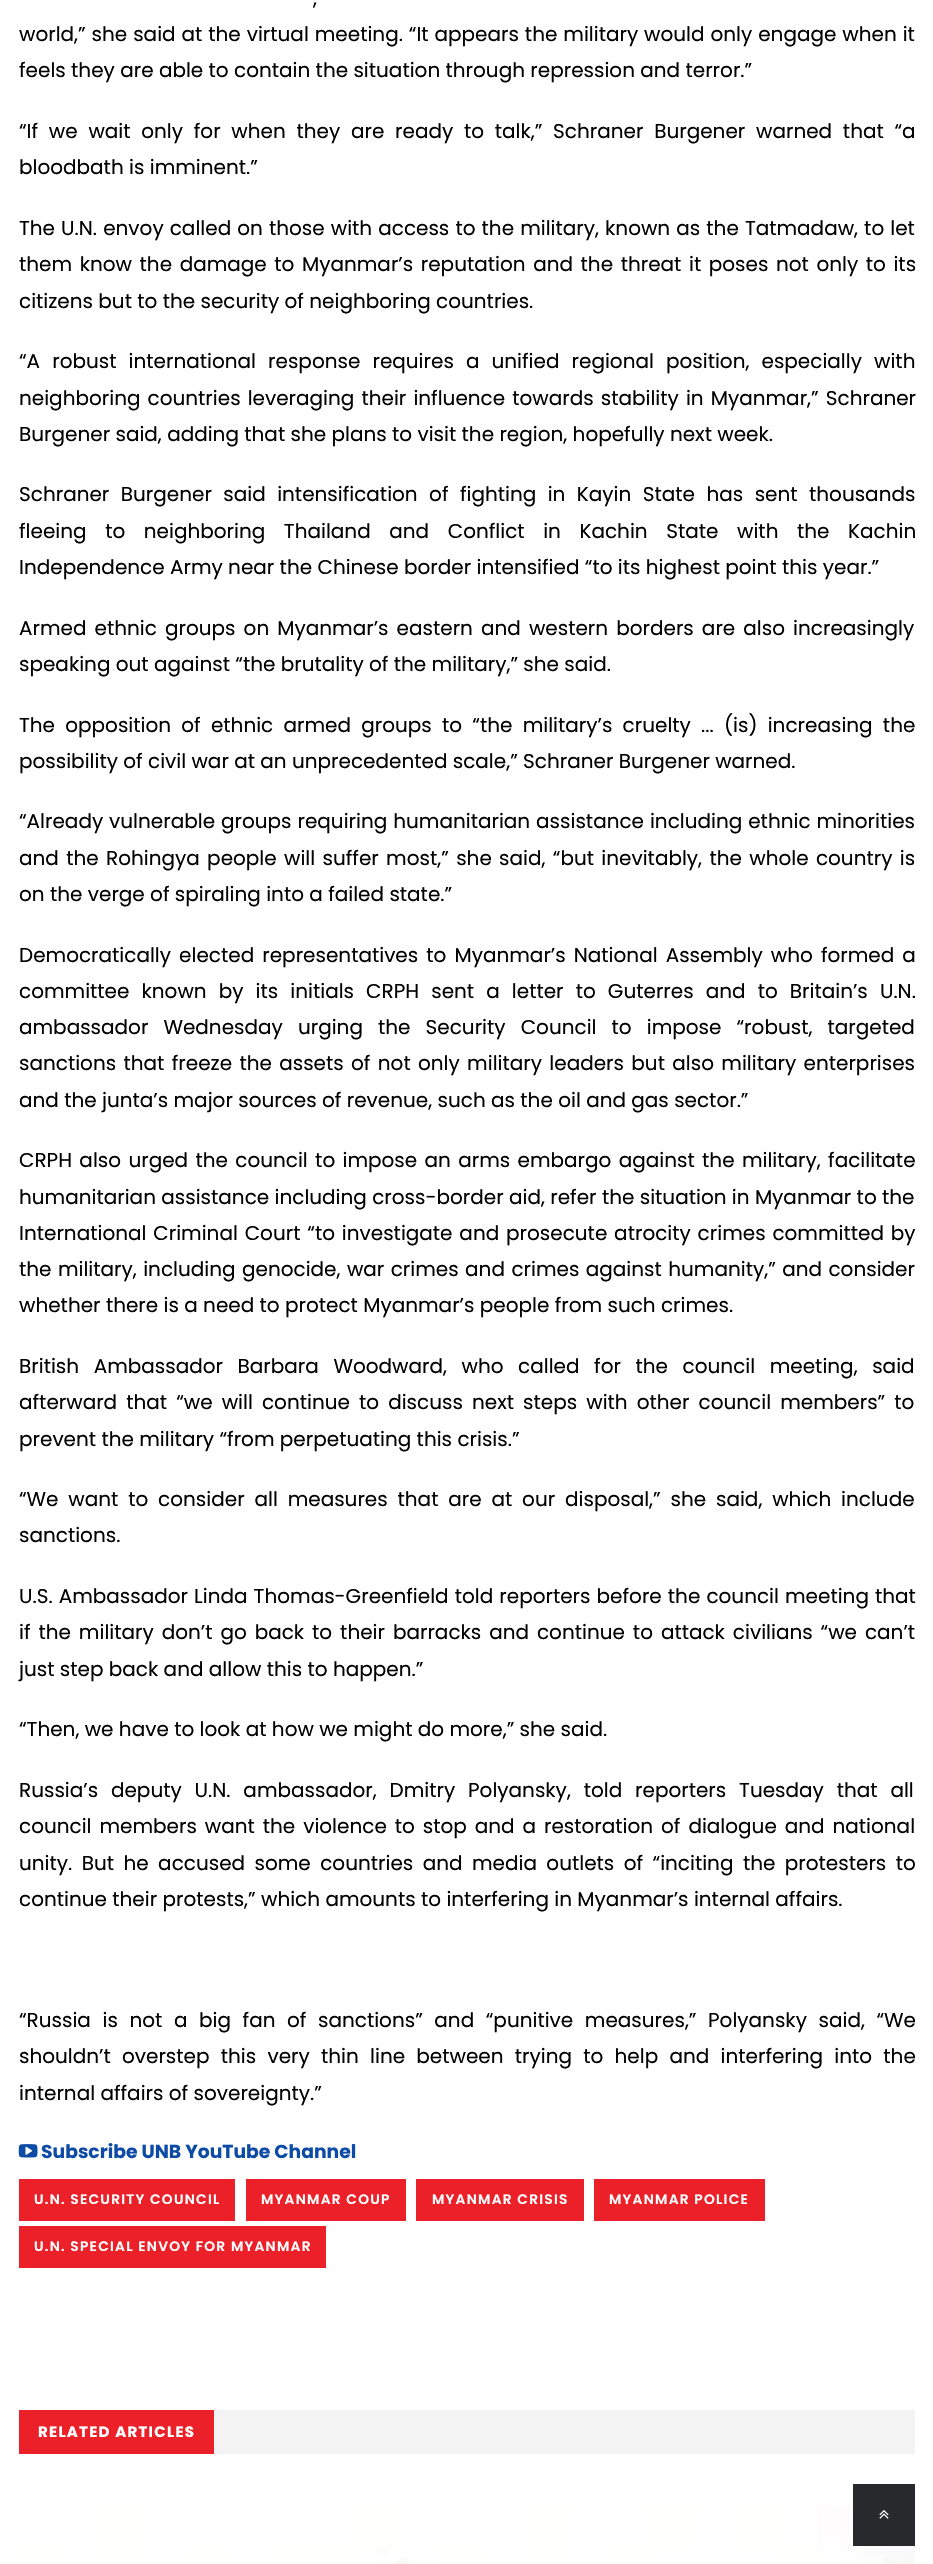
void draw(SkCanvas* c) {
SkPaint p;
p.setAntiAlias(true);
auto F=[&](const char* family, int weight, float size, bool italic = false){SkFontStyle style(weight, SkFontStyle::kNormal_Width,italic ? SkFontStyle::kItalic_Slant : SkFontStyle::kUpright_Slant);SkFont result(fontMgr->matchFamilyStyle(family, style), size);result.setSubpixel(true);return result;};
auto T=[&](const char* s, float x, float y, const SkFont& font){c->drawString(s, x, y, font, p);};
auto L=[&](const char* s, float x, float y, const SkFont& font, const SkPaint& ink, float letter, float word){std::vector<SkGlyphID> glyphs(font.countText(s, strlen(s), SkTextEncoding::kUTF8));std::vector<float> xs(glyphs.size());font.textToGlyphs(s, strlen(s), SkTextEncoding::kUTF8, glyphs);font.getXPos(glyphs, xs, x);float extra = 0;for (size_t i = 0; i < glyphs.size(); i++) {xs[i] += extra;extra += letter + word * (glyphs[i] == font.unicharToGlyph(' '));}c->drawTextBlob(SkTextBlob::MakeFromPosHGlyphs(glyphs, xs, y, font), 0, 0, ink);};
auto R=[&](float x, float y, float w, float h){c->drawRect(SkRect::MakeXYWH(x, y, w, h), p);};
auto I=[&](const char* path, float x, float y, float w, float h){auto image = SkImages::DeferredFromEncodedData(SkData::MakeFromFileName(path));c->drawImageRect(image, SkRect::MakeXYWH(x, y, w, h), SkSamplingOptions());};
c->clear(0xffffffff);
auto f1 = F("Poppins",400,20);
p.setColor(0xff000000);
L(",",313,5,f1,p,0,3);
L("world,” she said at the virtual meeting. “It appears the military would only engage when it",19,41,f1,p,0,.6);
T("feels they are able to contain the situation through repression and terror.”",19,77,f1);
L("“If we wait only for when they are ready to talk,” Schraner Burgener warned that “a",19,138,f1,p,0,5.4);
T("bloodbath is imminent.”",19,174,f1);
L("The U.N. envoy called on those with access to the military, known as the Tatmadaw, to let",19,235,f1,p,0,.75);
L("them know the damage to Myanmar’s reputation and the threat it poses not only to its",19,271,f1,p,0,2.25);
T("citizens but to the security of neighboring countries.",19,308,f1);
L("“A robust international response requires a unified regional position, especially with",19,368,f1,p,0,6.75);
L("neighboring countries leveraging their influence towards stability in Myanmar,” Schraner",19,405,f1,p,0,1.75);
T("Burgener said, adding that she plans to visit the region, hopefully next week.",19,441,f1);
L("Schraner Burgener said intensification of fighting in Kayin State has sent thousands",19,501,f1,p,0,6.1);
L("fleeing to neighboring Thailand and Conflict in Kachin State with the Kachin",19,538,f1,p,0,13.25);
T("Independence Army near the Chinese border intensified “to its highest point this year.”",19,574,f1);
L("Armed ethnic groups on Myanmar’s eastern and western borders are also increasingly",19,635,f1,p,0,2.75);
T("speaking out against “the brutality of the military,” she said.",19,671,f1);
L("The opposition of ethnic armed groups to “the military’s cruelty ... (is) increasing the",19,732,f1,p,0,4.9);
T("possibility of civil war at an unprecedented scale,” Schraner Burgener warned.",19,768,f1);
L("“Already vulnerable groups requiring humanitarian assistance including ethnic minorities",19,828,f1,p,0,.6);
L("and the Rohingya people will suffer most,” she said, “but inevitably, the whole country is",19,865,f1,p,0,2);
T("on the verge of spiraling into a failed state.”",19,901,f1);
L("Democratically elected representatives to Myanmar’s National Assembly who formed a",19,962,f1,p,0,2.75);
L("committee known by its initials CRPH sent a letter to Guterres and to Britain’s U.N.",19,998,f1,p,0,6.75);
L("ambassador Wednesday urging the Security Council to impose “robust, targeted",19,1034,f1,p,0,9.75);
L("sanctions that freeze the assets of not only military leaders but also military enterprises",19,1070,f1,p,0,2);
T("and the junta’s major sources of revenue, such as the oil and gas sector.”",19,1107,f1);
L("CRPH also urged the council to impose an arms embargo against the military, facilitate",19,1167,f1,p,0,2);
T("humanitarian assistance including cross-border aid, refer the situation in Myanmar to the",19,1204,f1);
L("International Criminal Court “to investigate and prosecute atrocity crimes committed by",19,1240,f1,p,0,1.5);
L("the military, including genocide, war crimes and crimes against humanity,” and consider",19,1276,f1,p,0,1.1);
T("whether there is a need to protect Myanmar’s people from such crimes.",19,1312,f1);
L("British Ambassador Barbara Woodward, who called for the council meeting, said",19,1373,f1,p,0,9.25);
L("afterward that “we will continue to discuss next steps with other council members” to",19,1409,f1,p,0,3.75);
T("prevent the military “from perpetuating this crisis.”",19,1446,f1);
L("“We want to consider all measures that are at our disposal,” she said, which include",19,1506,f1,p,0,4.5);
T("sanctions.",19,1542,f1);
L("U.S. Ambassador Linda Thomas-Greenfield told reporters before the council meeting that",19,1603,f1,p,0,.75);
L("if the military don’t go back to their barracks and continue to attack civilians “we can’t",19,1639,f1,p,0,2.6);
T("just step back and allow this to happen.”",19,1676,f1);
T("“Then, we have to look at how we might do more,” she said.",19,1736,f1);
L("Russia’s deputy U.N. ambassador, Dmitry Polyansky, told reporters Tuesday that all",19,1797,f1,p,0,7.5);
L("council members want the violence to stop and a restoration of dialogue and national",19,1833,f1,p,0,2.6);
L("unity. But he accused some countries and media outlets of “inciting the protesters to",19,1870,f1,p,0,4.1);
T("continue their protests,” which amounts to interfering in Myanmar’s internal affairs.",19,1906,f1);
L("“Russia is not a big fan of sanctions” and “punitive measures,” Polyansky said, “We",19,2027,f1,p,0,6.25);
L("shouldn’t overstep this very thin line between trying to help and interfering into the",19,2063,f1,p,0,5.9);
T("internal affairs of sovereignty.”",19,2100,f1);
I("1.png",18,2144,20,14);
auto f2 = F("Poppins",700,18.75);
p.setColor(0xff0d4ba6);
T("Subscribe UNB YouTube Channel",41,2158,f2);
p.setColor(0xffec2028);
R(19,2179,216,42);
auto f3 = F("Poppins",600,13.75);
p.setColor(0xffffffff);
L("U.N. SECURITY COUNCIL",34,2204,f3,p,1.25,0);
p.setColor(0xffec2028);
R(246,2179,160,42);
p.setColor(0xffffffff);
L("MYANMAR COUP",261,2204,f3,p,1.25,0);
p.setColor(0xffec2028);
R(416,2179,168,42);
p.setColor(0xffffffff);
L("MYANMAR CRISIS",432,2204,f3,p,1.25,0);
p.setColor(0xffec2028);
R(594,2179,171,42);
p.setColor(0xffffffff);
L("MYANMAR POLICE",609,2204,f3,p,1.25,0);
p.setColor(0xffec2028);
R(19,2226,307,42);
p.setColor(0xffffffff);
L("U.N. SPECIAL ENVOY FOR MYANMAR",34,2251,f3,p,1.25,0);
p.setColor(0xfff3f3f3);
R(214,2410,701,44);
p.setColor(0xffec2028);
R(19,2410,195,44);
auto f4 = F("Poppins",700,15);
p.setColor(0xffffffff);
L("RELATED ARTICLES",38,2437,f4,p,1.25,0);
I("2.png",19,2506,896,58);
p.setColor(0xff27292d);
R(853,2484,62,62);
I("3.png",879,2510,10,9);
}
